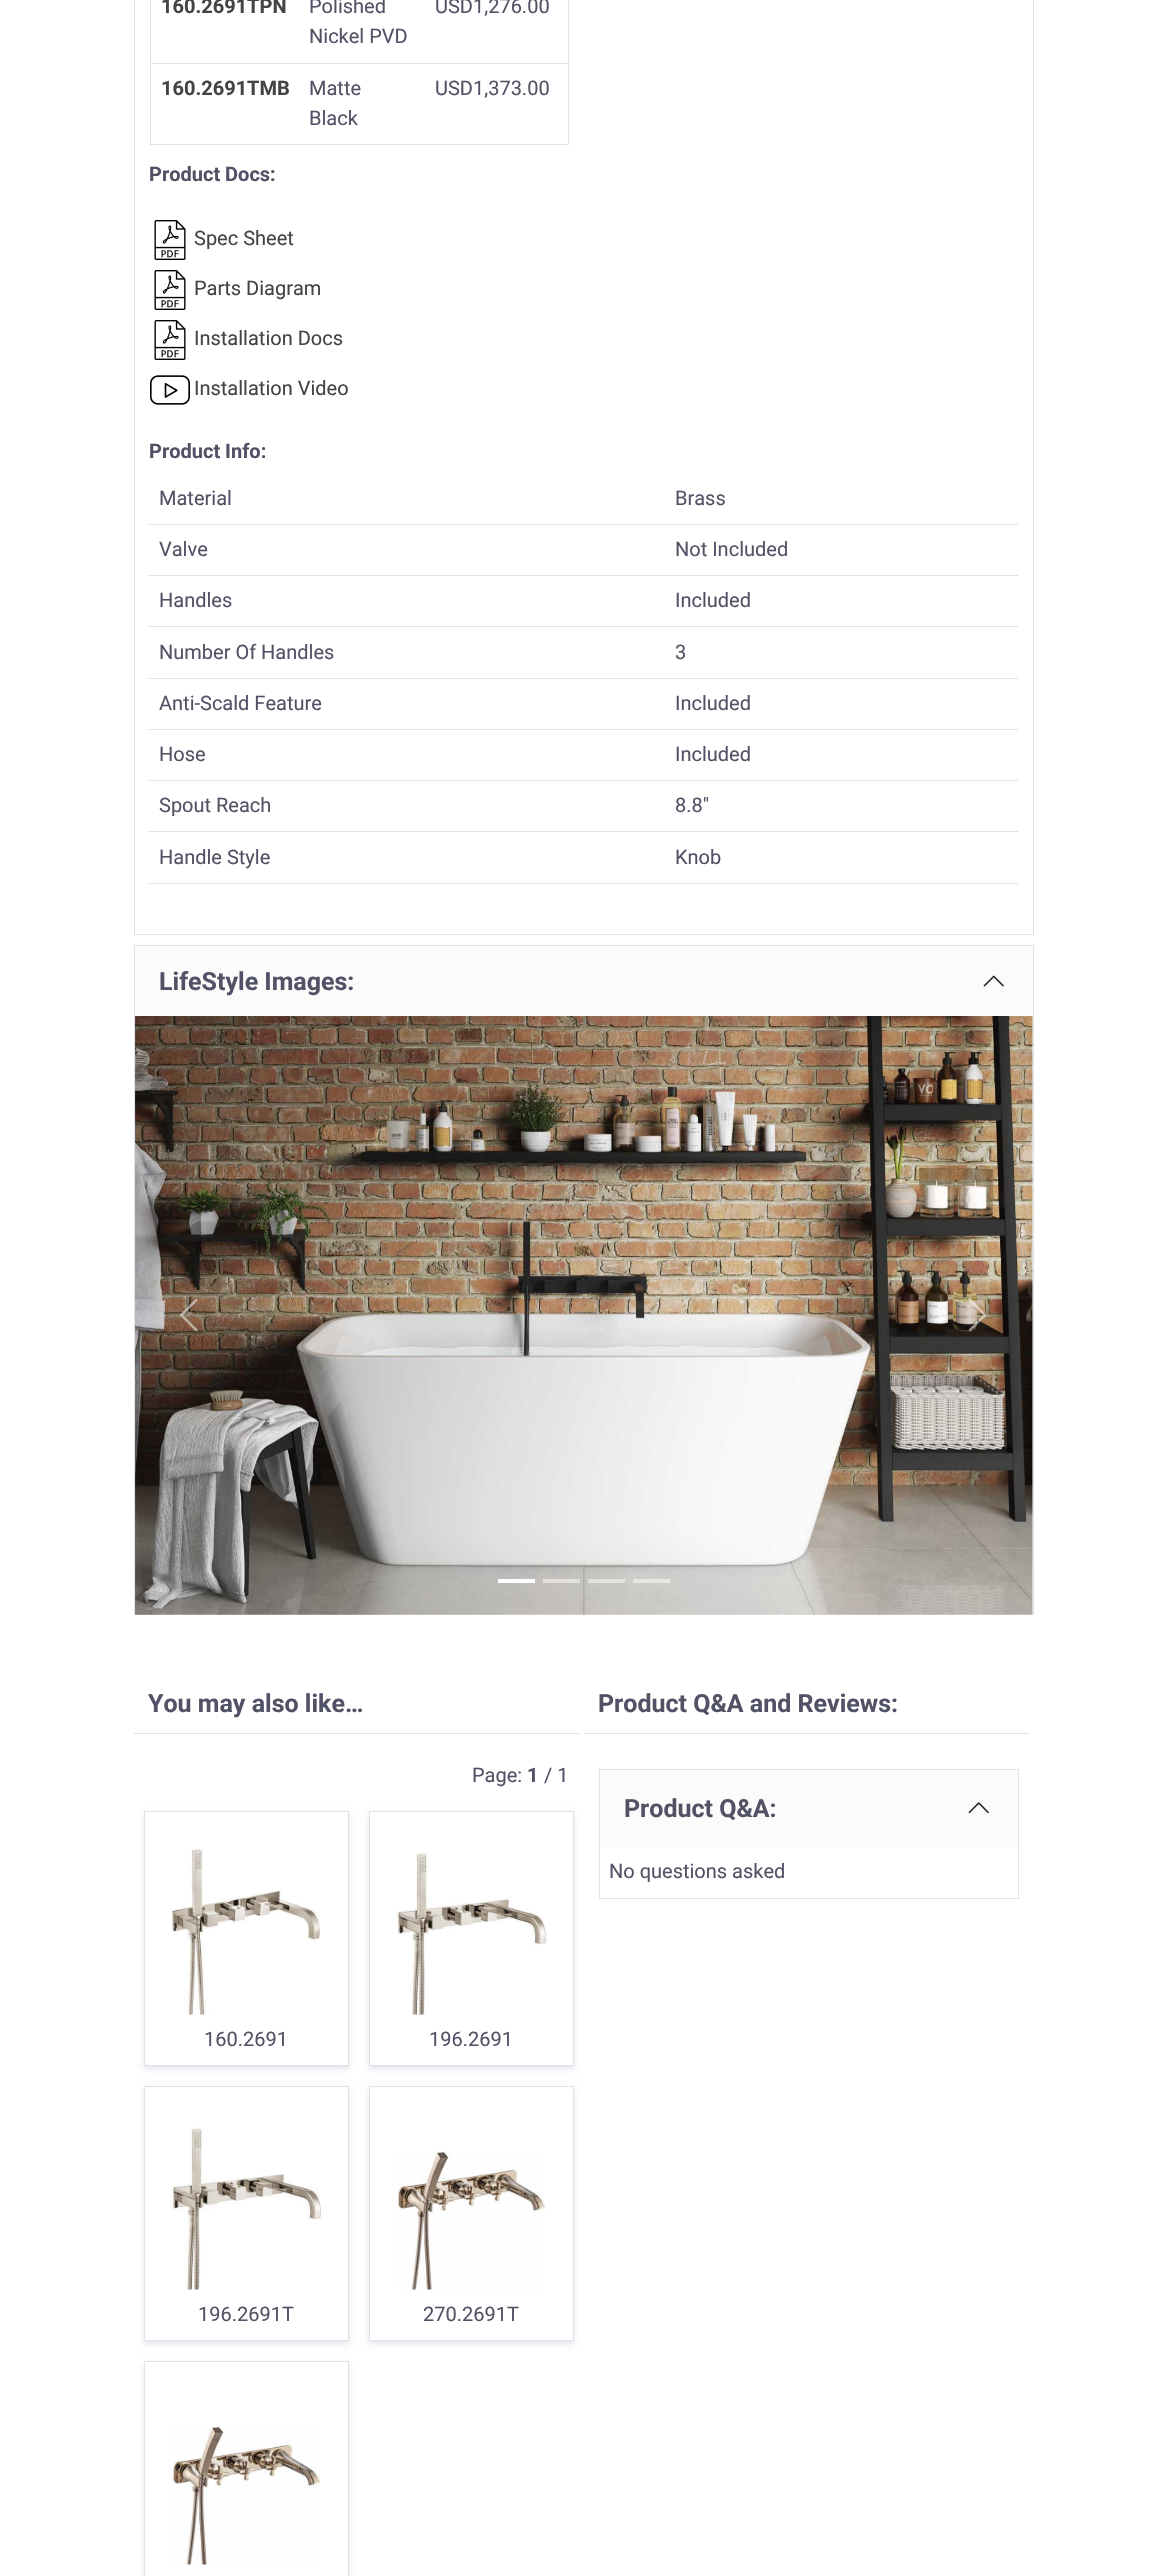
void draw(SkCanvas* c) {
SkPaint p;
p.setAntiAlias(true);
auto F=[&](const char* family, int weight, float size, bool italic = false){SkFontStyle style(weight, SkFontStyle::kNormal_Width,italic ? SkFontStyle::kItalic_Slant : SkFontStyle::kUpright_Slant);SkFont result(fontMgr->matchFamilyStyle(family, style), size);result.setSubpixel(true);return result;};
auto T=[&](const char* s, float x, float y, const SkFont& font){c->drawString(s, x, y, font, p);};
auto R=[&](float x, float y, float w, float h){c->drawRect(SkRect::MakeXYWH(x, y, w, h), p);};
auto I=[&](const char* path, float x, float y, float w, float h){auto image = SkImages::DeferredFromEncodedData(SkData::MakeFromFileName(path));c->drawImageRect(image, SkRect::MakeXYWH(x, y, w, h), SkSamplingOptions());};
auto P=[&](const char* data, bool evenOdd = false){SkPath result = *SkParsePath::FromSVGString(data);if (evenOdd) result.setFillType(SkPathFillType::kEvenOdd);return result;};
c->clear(0xffffffff);
p.setStroke(true);
p.setStrokeWidth(1);
p.setColor(0xffdee2e6);
c->drawRect(SkRect::MakeXYWH(134.5,-.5,899,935),p);
p.setStroke(false);
R(568,0,1,145);
R(150,144,419,1);
R(150,0,1,145);
auto f1 = F("Roboto",700,20);
p.setColor(0xff444444);
T("160.2691TPN",161,13,f1);
auto f2 = F("Roboto",400,20);
p.setColor(0xff525266);
T("Polished",309,13,f2);
T("Nickel PVD",309,43,f2);
p.setColor(0xffdee2e6);
R(150,63,419,1);
p.setColor(0xff525266);
T("USD1,276.00",435,13,f2);
p.setColor(0xff444444);
T("160.2691TMB",161,95,f1);
p.setColor(0xff525266);
T("Matte",309,95,f2);
T("Black",309,125,f2);
T("USD1,373.00",435,95,f2);
T("Product Docs:",149,181,f1);
I("1.png",154,220,32,40);
p.setColor(0xff444444);
T("Spec Sheet",194,245,f2);
I("1.png",154,270,32,40);
T("Parts Diagram",194,295,f2);
I("1.png",154,320,32,40);
T("Installation Docs",194,345,f2);
I("2.png",150,375,40,30);
T("Installation Video",194,395,f2);
p.setColor(0xff525266);
T("Product Info:",149,458,f1);
T("Material",159,505,f2);
p.setColor(0xffdee2e6);
R(149,524,869,1);
p.setColor(0xff525266);
T("Brass",675,505,f2);
T("Valve",159,556,f2);
p.setColor(0xffdee2e6);
R(149,575,869,1);
p.setColor(0xff525266);
T("Not Included",675,556,f2);
T("Handles",159,607,f2);
p.setColor(0xffdee2e6);
R(149,626,869,1);
p.setColor(0xff525266);
T("Included",675,607,f2);
T("Number Of Handles",159,659,f2);
p.setColor(0xffdee2e6);
R(149,678,869,1);
p.setColor(0xff525266);
T("3",675,659,f2);
T("Anti-Scald Feature",159,710,f2);
p.setColor(0xffdee2e6);
R(149,729,869,1);
p.setColor(0xff525266);
T("Included",675,710,f2);
T("Hose",159,761,f2);
p.setColor(0xffdee2e6);
R(149,780,869,1);
p.setColor(0xff525266);
T("Included",675,761,f2);
T("Spout Reach",159,812,f2);
p.setColor(0xffdee2e6);
R(149,831,869,1);
p.setColor(0xff525266);
T("8.8\"",675,812,f2);
T("Handle Style",159,864,f2);
p.setColor(0xffdee2e6);
R(149,883,869,1);
p.setColor(0xff525266);
T("Knob",675,864,f2);
p.setColor(0xffdee2e6);
R(134,945,900,1);
R(1033,945,1,670);
R(134,945,1,670);
p.setColor(0xfffbfbfb);
R(135,946,898,70);
auto f3 = F("Roboto",700,25);
p.setColor(0xff525266);
T("LifeStyle Images:",159,990,f3);
I("3.png",983,975,21,12);
I("4.png",135,1016,898,599);
I("5.png",180,1298,18,34);
I("6.png",968,1298,19,34);
p.setColor(0xffffffff);
R(498,1579,37,4);
p.setColor(0x80ffffff);
R(543,1579,37,4);
R(588,1579,37,4);
R(633,1579,37,4);
p.setColor(0xffdee2e6);
R(134,1733,445,1);
p.setColor(0xff525266);
T("You may also like…",148,1712,f3);
T("Page:",472,1782,f2);
T("1",527,1782,f1);
T("/ 1",544,1782,f2);
c->save();
c->clipPath(P("M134 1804h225v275h-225zm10 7h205v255h-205z",true),true);
p.setColor(0xffe3e5ec);
p.setMaskFilter(SkMaskFilter::MakeBlur(kNormal_SkBlurStyle, 3));
c->drawRect(SkRect::MakeXYWH(144,1814,205,255),p);
p.setMaskFilter(nullptr);
c->restore();
p.setStroke(true);
p.setColor(0xffdee2e6);
c->drawRect(SkRect::MakeXYWH(144.5,1811.5,204,254),p);
I("7.png",171,1848,149,167);
p.setStroke(false);
p.setColor(0xff525266);
T("160.2691",204,2046,f2);
c->save();
c->clipPath(P("M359 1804h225v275h-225zm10 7h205v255h-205z",true),true);
p.setColor(0xffe3e5ec);
p.setMaskFilter(SkMaskFilter::MakeBlur(kNormal_SkBlurStyle, 3));
c->drawRect(SkRect::MakeXYWH(369,1814,205,255),p);
p.setMaskFilter(nullptr);
c->restore();
p.setStroke(true);
p.setColor(0xffdee2e6);
c->drawRect(SkRect::MakeXYWH(369.5,1811.5,204,254),p);
I("8.png",396,1851,152,164);
p.setStroke(false);
p.setColor(0xff525266);
T("196.2691",429,2046,f2);
c->save();
c->clipPath(P("M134 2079h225v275h-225zm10 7h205v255h-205z",true),true);
p.setColor(0xffe3e5ec);
p.setMaskFilter(SkMaskFilter::MakeBlur(kNormal_SkBlurStyle, 3));
c->drawRect(SkRect::MakeXYWH(144,2089,205,255),p);
p.setMaskFilter(nullptr);
c->restore();
p.setStroke(true);
p.setColor(0xffdee2e6);
c->drawRect(SkRect::MakeXYWH(144.5,2086.5,204,254),p);
I("9.png",171,2126,152,164);
p.setStroke(false);
p.setColor(0xff525266);
T("196.2691T",198,2321,f2);
c->save();
c->clipPath(P("M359 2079h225v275h-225zm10 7h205v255h-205z",true),true);
p.setColor(0xffe3e5ec);
p.setMaskFilter(SkMaskFilter::MakeBlur(kNormal_SkBlurStyle, 3));
c->drawRect(SkRect::MakeXYWH(369,2089,205,255),p);
p.setMaskFilter(nullptr);
c->restore();
p.setStroke(true);
p.setColor(0xffdee2e6);
c->drawRect(SkRect::MakeXYWH(369.5,2086.5,204,254),p);
I("10.png",396,2151,149,139);
p.setStroke(false);
p.setColor(0xff525266);
T("270.2691T",423,2321,f2);
c->save();
c->clipPath(P("M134 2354h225v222h-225zm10 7h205v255h-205z",true),true);
p.setColor(0xffe3e5ec);
p.setMaskFilter(SkMaskFilter::MakeBlur(kNormal_SkBlurStyle, 3));
c->drawRect(SkRect::MakeXYWH(144,2364,205,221),p);
p.setMaskFilter(nullptr);
c->restore();
p.setStroke(true);
p.setColor(0xffdee2e6);
c->drawRect(SkRect::MakeXYWH(144.5,2361.5,204,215),p);
I("11.png",171,2426,149,139);
p.setStroke(false);
R(584,1733,445,1);
p.setColor(0xff525266);
T("Product Q&A and Reviews:",598,1712,f3);
p.setStroke(true);
p.setColor(0xffdee2e6);
c->drawRect(SkRect::MakeXYWH(599.5,1769.5,419,129),p);
p.setStroke(false);
p.setColor(0xfffbfbfb);
c->drawPath(P("M606 1770h406c3.5 0 6 2.5 6 6v72h-418v-72c0-3.5 2.5-6 6-6z"),p);
p.setColor(0xff525266);
T("Product Q&A:",624,1817,f3);
I("12.png",968,1802,21,12);
T("No questions asked",609,1878,f2);
}
